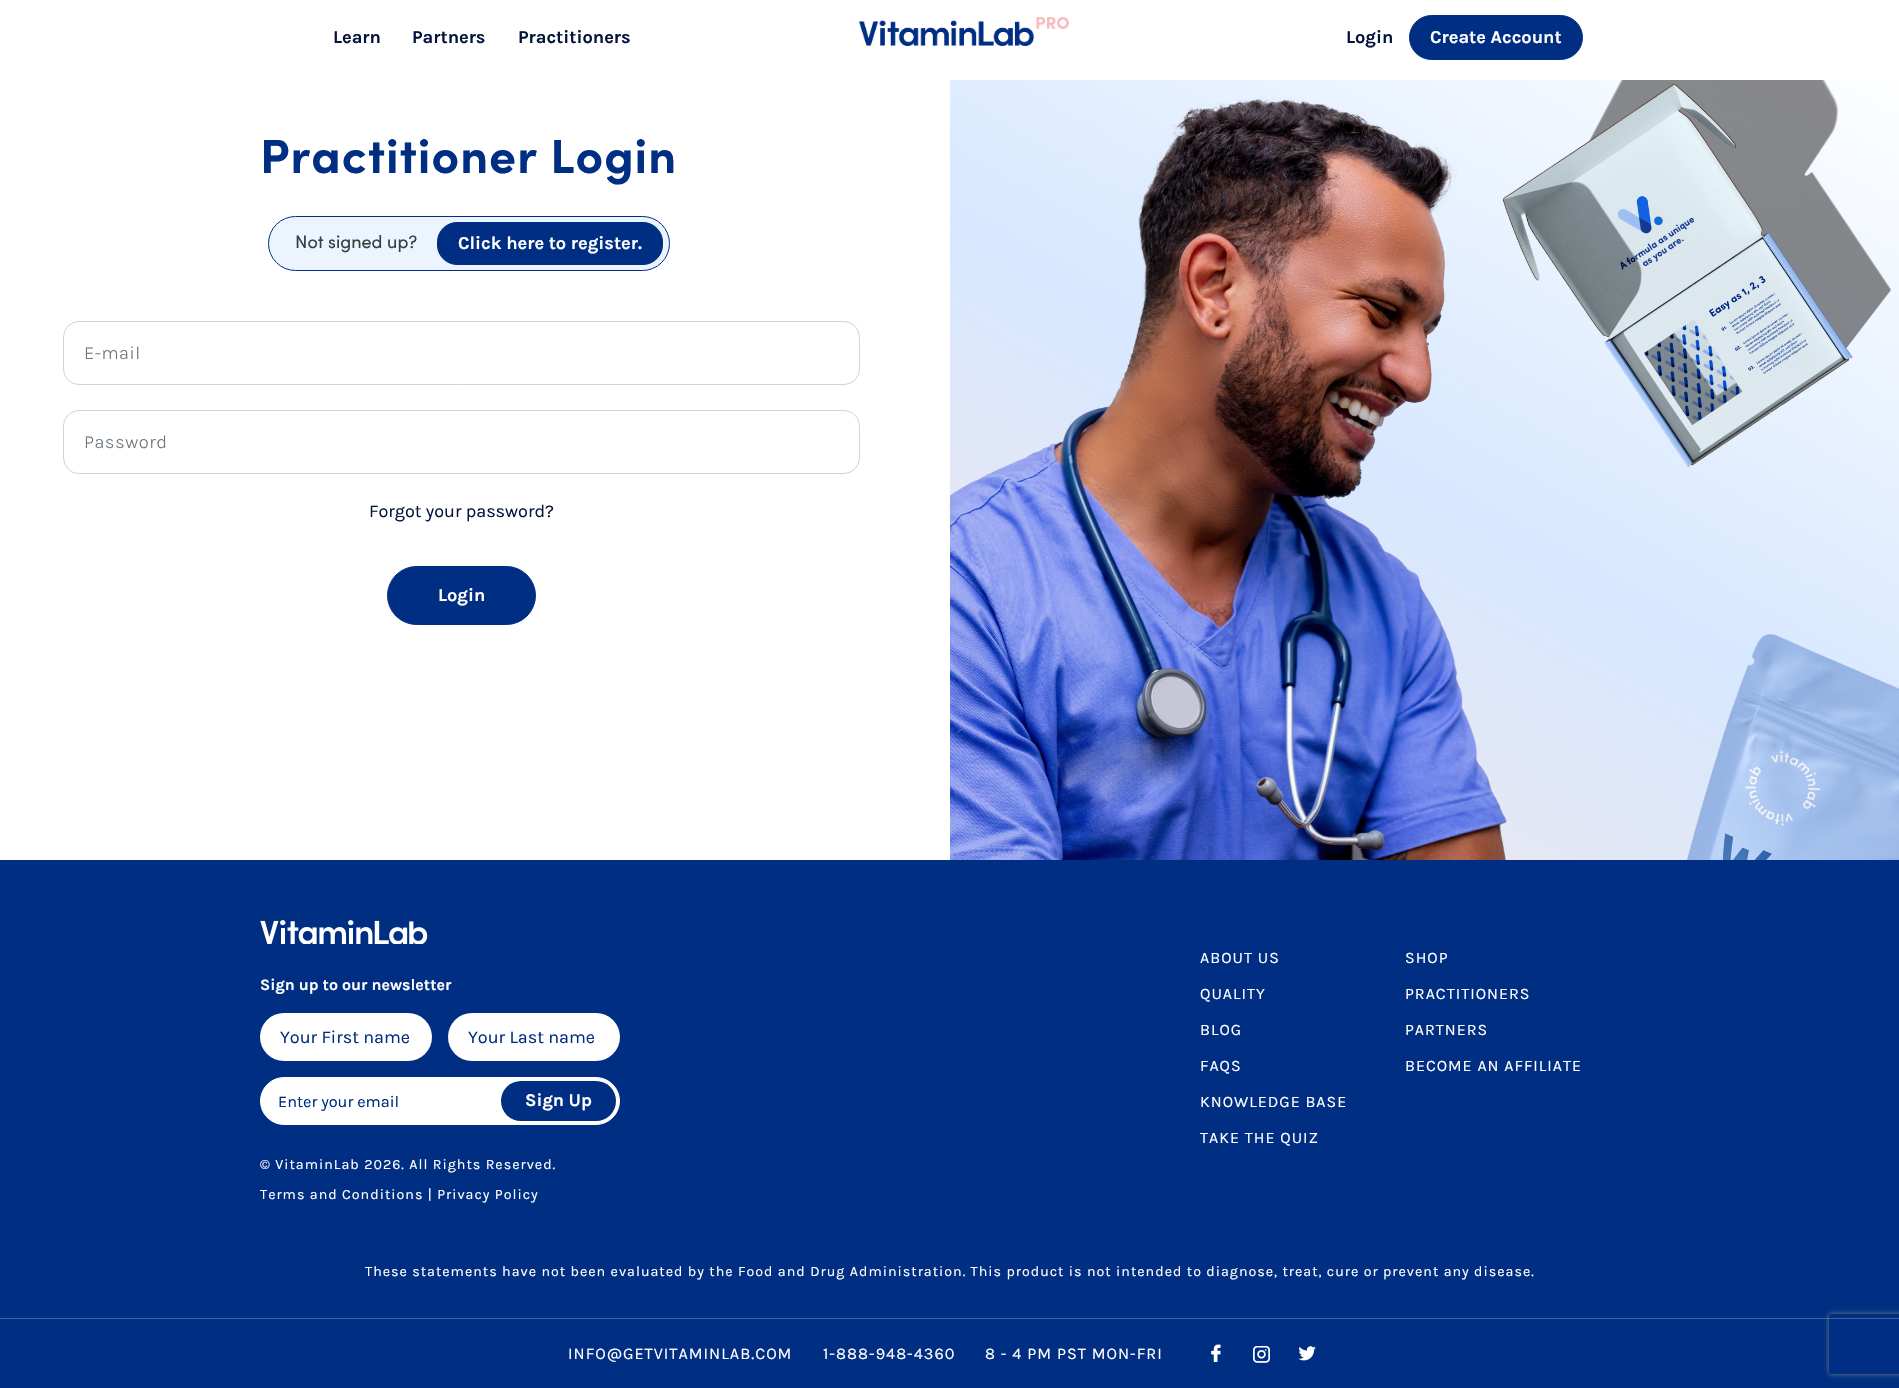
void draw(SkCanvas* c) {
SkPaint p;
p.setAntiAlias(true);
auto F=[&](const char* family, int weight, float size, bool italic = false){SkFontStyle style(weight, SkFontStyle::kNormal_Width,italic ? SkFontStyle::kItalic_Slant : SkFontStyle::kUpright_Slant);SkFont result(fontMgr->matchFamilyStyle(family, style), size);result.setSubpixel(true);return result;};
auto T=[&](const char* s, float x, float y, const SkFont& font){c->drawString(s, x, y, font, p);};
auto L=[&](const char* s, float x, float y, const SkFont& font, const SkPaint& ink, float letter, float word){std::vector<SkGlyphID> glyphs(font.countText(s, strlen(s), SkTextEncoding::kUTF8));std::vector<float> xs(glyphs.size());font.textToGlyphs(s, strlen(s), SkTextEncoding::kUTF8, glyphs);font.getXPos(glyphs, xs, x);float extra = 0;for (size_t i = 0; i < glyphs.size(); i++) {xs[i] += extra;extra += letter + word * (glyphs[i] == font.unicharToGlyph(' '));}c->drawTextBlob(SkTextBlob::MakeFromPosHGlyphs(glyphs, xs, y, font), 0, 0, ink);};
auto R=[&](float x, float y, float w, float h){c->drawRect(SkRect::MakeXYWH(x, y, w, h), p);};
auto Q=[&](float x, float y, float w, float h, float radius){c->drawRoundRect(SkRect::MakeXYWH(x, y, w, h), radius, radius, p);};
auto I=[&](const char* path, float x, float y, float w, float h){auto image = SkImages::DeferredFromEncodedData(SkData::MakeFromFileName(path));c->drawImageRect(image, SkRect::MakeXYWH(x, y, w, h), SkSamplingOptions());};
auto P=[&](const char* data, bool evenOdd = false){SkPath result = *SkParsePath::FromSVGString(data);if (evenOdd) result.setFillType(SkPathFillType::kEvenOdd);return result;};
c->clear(0xffffffff);
auto f1 = F("Karla",700,18.25);
p.setColor(0xff04133c);
T("Learn",333,43,f1);
T("Partners",412,43,f1);
T("Practitioners",518,43,f1);
I("1.png",859,17,210,29);
T("Login",1346,43,f1);
p.setColor(0xff002e82);
c->drawRoundRect(SkRect::MakeXYWH(1409.5,15.5,173,44),22,22,p);
p.setStroke(true);
p.setStrokeWidth(1);
c->drawRoundRect(SkRect::MakeXYWH(1409.5,15.5,173,44),22,22,p);
p.setStroke(false);
p.setColor(0xffffffff);
T("Create Account",1430,43,f1);
auto f2 = F("Sofia",700,48);
p.setColor(0xff002e82);
L("Practitioner Login",260,173,f2,p,1,0);
p.setColor(0xffebf4ff);
c->drawRoundRect(SkRect::MakeXYWH(268.5,216.5,401,54),27,27,p);
p.setStroke(true);
p.setColor(0xff002e82);
c->drawRoundRect(SkRect::MakeXYWH(268.5,216.5,401,54),27,27,p);
auto f3 = F("Sofia",400,18);
p.setStroke(false);
p.setColor(0xff373f41);
T("Not signed up?",295,248,f3);
p.setColor(0xff002e82);
c->drawRoundRect(SkRect::MakeXYWH(437.5,222.5,225,42),19.5,19.5,p);
p.setStroke(true);
c->drawRoundRect(SkRect::MakeXYWH(437.5,222.5,225,42),19.5,19.5,p);
p.setStroke(false);
p.setColor(0xffffffff);
T("Click here to register.",458,249,f1);
p.setStroke(true);
p.setColor(0xffced4da);
c->drawRoundRect(SkRect::MakeXYWH(63.5,321.5,796,63),15.5,15.5,p);
auto f4 = F("Karla",300,18.5);
p.setStroke(false);
p.setColor(0xff6c757d);
L("E-mail",84,359,f4,p,.5,0);
p.setStroke(true);
p.setColor(0xffced4da);
c->drawRoundRect(SkRect::MakeXYWH(63.5,410.5,796,63),15.5,15.5,p);
p.setStroke(false);
p.setColor(0xff6c757d);
L("Password",84,448,f4,p,.5,0);
auto f5 = F("Karla",400,18);
p.setColor(0xff04133c);
T("Forgot your password?",369,517,f5);
p.setColor(0xff002e82);
c->drawRoundRect(SkRect::MakeXYWH(387.5,566.5,148,58),29,29,p);
p.setStroke(true);
c->drawRoundRect(SkRect::MakeXYWH(387.5,566.5,148,58),29,29,p);
p.setStroke(false);
p.setColor(0xffffffff);
T("Login",438,601,f1);
I("2.png",950,80,949,780);
p.setColor(0xff002e82);
R(0,860,1899,528);
I("3.png",260,920,168,24);
auto f6 = F("Karla",700,16);
p.setColor(0xffffffff);
T("Sign up to our newsletter",260,990,f6);
Q(260,1013,172,48,24);
p.setColor(0xff002e82);
T("Your First name",280,1043,f5);
p.setColor(0xffffffff);
Q(448,1013,172,48,24);
p.setColor(0xff002e82);
T("Your Last name",468,1043,f5);
p.setColor(0xffffffff);
c->drawRoundRect(SkRect::MakeXYWH(260.5,1077.5,359,47),23.5,23.5,p);
p.setStroke(true);
c->drawRoundRect(SkRect::MakeXYWH(260.5,1077.5,359,47),23.5,23.5,p);
auto f7 = F("Karla",400,16.25);
p.setStroke(false);
p.setColor(0xff002e82);
T("Enter your email",278,1107,f7);
Q(501,1081,115,40,20);
auto f8 = F("Karla",700,18);
p.setColor(0xffffffff);
T("Sign Up",525,1106,f8);
auto f9 = F("Karla",400,14.25);
L("© VitaminLab 2026. All Rights Reserved.",260,1169,f9,p,1,0);
L("Terms and Conditions | Privacy Policy",260,1199,f9,p,1,0);
auto f10 = F("Karla",400,16);
L("ABOUT US",1200,963,f10,p,1,0);
L("SHOP",1405,963,f10,p,1,0);
L("QUALITY",1200,999,f10,p,1,0);
L("PRACTITIONERS",1405,999,f10,p,1,0);
L("BLOG",1200,1035,f10,p,1,0);
L("PARTNERS",1405,1035,f10,p,1,0);
L("FAQS",1200,1071,f10,p,1,0);
L("BECOME AN AFFILIATE",1405,1071,f10,p,1,0);
L("KNOWLEDGE BASE",1200,1107,f10,p,1,0);
L("TAKE THE QUIZ",1200,1143,f10,p,1,0);
L("These statements have not been evaluated by the Food and Drug Administration. This product is not intended to diagnose, treat, cure or prevent any disease.",365,1276,f9,p,1,0);
p.setColor(0xff3f63a2);
R(0,1318,1899,1);
p.setColor(0xffffffff);
L("INFO@GETVITAMINLAB.COM",568,1359,f7,p,1,0);
L("1-888-948-4360",823,1359,f7,p,1,0);
L("8 - 4 PM PST MON-FRI",985,1359,f7,p,1,0);
I("4.png",1211,1344,10,18);
I("5.png",1253,1346,17,17);
I("6.png",1298,1346,18,15);
c->save();
c->clipPath(P("M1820 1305h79v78h-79zm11 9h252c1 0 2 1 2 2v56c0 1-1 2-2 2h-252c-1 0-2-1-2-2v-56c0-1 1-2 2-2z",true),true);
p.setColor(0xff808080);
p.setMaskFilter(SkMaskFilter::MakeBlur(kNormal_SkBlurStyle, 2.5));
c->drawRoundRect(SkRect::MakeXYWH(1829,1314,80,60),2,2,p);
p.setMaskFilter(nullptr);
c->restore();
}
